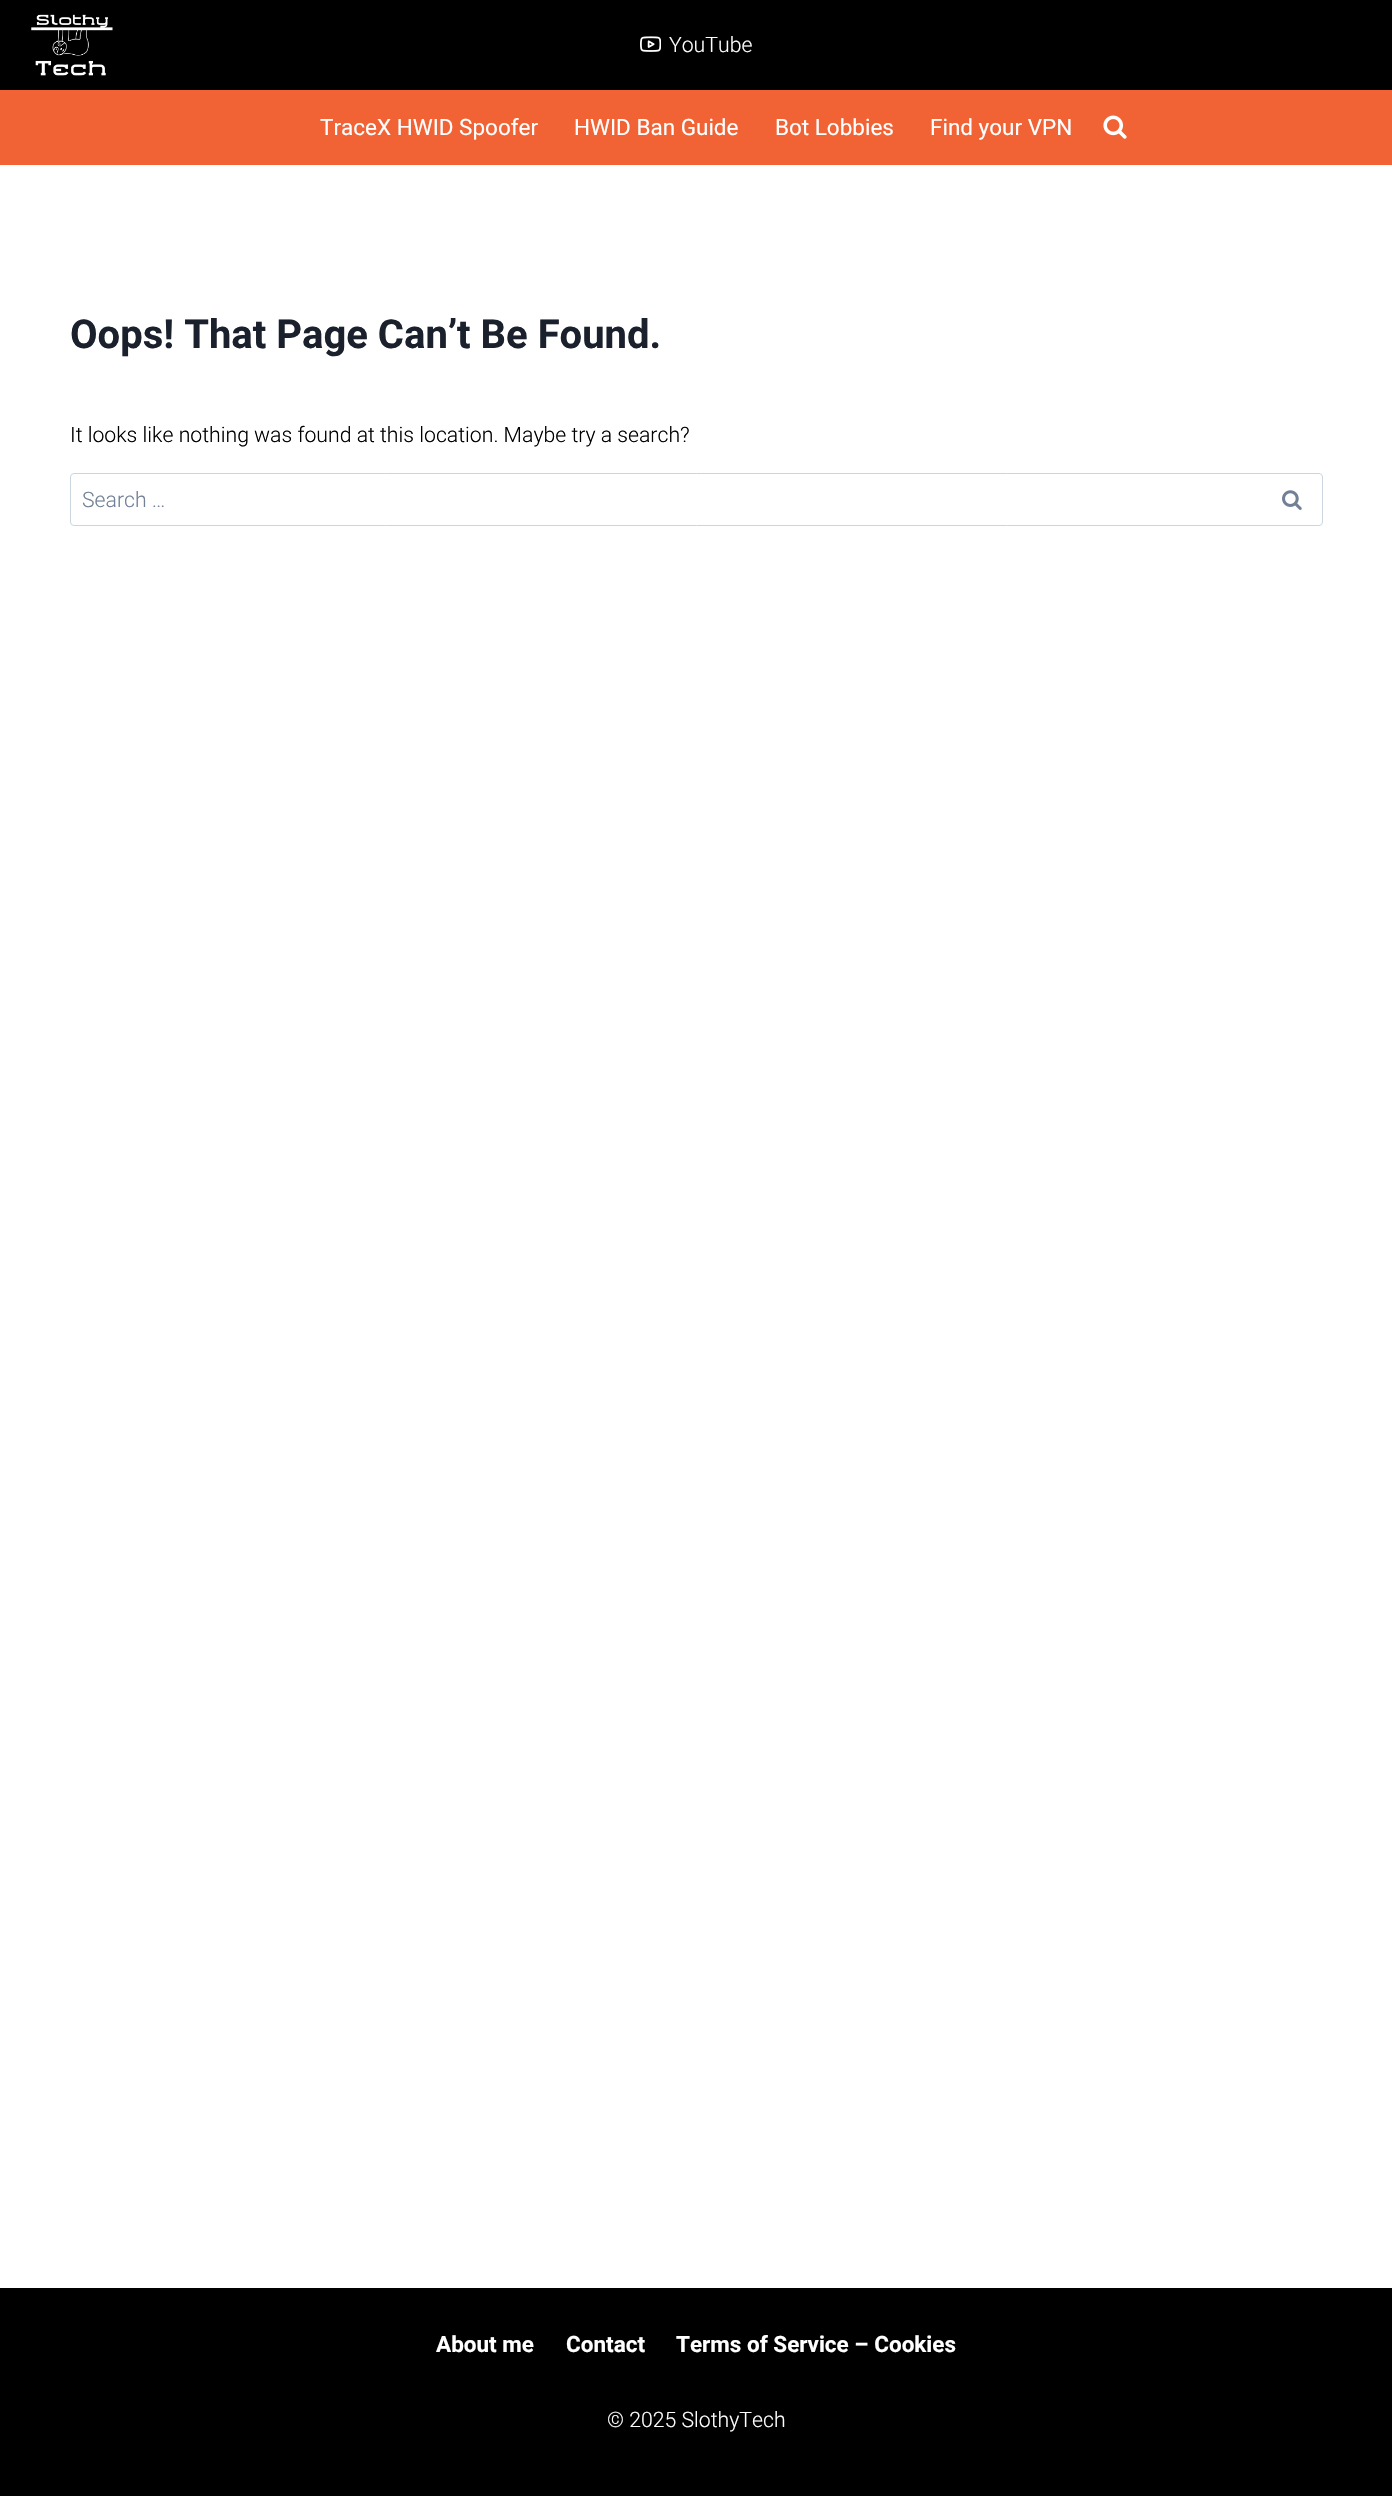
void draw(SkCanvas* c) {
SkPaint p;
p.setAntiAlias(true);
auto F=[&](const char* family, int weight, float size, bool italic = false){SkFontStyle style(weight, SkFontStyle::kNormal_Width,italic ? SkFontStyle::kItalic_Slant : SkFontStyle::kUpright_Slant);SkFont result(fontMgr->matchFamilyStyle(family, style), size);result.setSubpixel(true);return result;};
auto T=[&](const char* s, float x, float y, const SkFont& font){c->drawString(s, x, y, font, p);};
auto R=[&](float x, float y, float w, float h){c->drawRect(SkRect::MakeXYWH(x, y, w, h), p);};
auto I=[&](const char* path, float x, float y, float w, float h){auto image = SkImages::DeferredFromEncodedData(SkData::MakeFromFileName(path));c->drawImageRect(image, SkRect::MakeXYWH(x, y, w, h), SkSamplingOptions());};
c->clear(0xffffffff);
p.setColor(0xff000000);
R(0,0,1392,90);
I("1.png",31,14,82,62);
I("2.png",640,36,21,16);
auto f1 = F("Roboto",300,21.25);
p.setColor(0xffffffff);
T("YouTube",669,52,f1);
p.setColor(0xfff16334);
R(0,90,1392,75);
auto f2 = F("Roboto",400,22.5);
p.setColor(0xffffffff);
T("TraceX HWID Spoofer",320,135,f2);
T("HWID Ban Guide",574,135,f2);
T("Bot Lobbies",775,135,f2);
T("Find your VPN",930,135,f2);
I("3.png",1103,115,24,24);
auto f3 = F("Roboto",700,40);
p.setColor(0xff1a202c);
T("Oops! That Page Can’t Be Found.",70,348,f3);
p.setColor(0xff000000);
T("It looks like nothing was found at this location. Maybe try a search?",70,442,f1);
p.setStroke(true);
p.setStrokeWidth(1);
p.setColor(0xffcbd5e0);
c->drawRoundRect(SkRect::MakeXYWH(70.5,473.5,1252,52),3.5,3.5,p);
p.setStroke(false);
p.setColor(0xff718096);
T("Search …",82,507,f1);
I("4.png",1282,490,20,20);
p.setColor(0xff000000);
R(0,2288,1392,208);
auto f4 = F("Roboto",700,22.5);
p.setColor(0xffffffff);
T("About me",436,2352,f4);
T("Contact",566,2352,f4);
T("Terms of Service – Cookies",676,2352,f4);
T("© 2025 SlothyTech",607,2427,f1);
}
